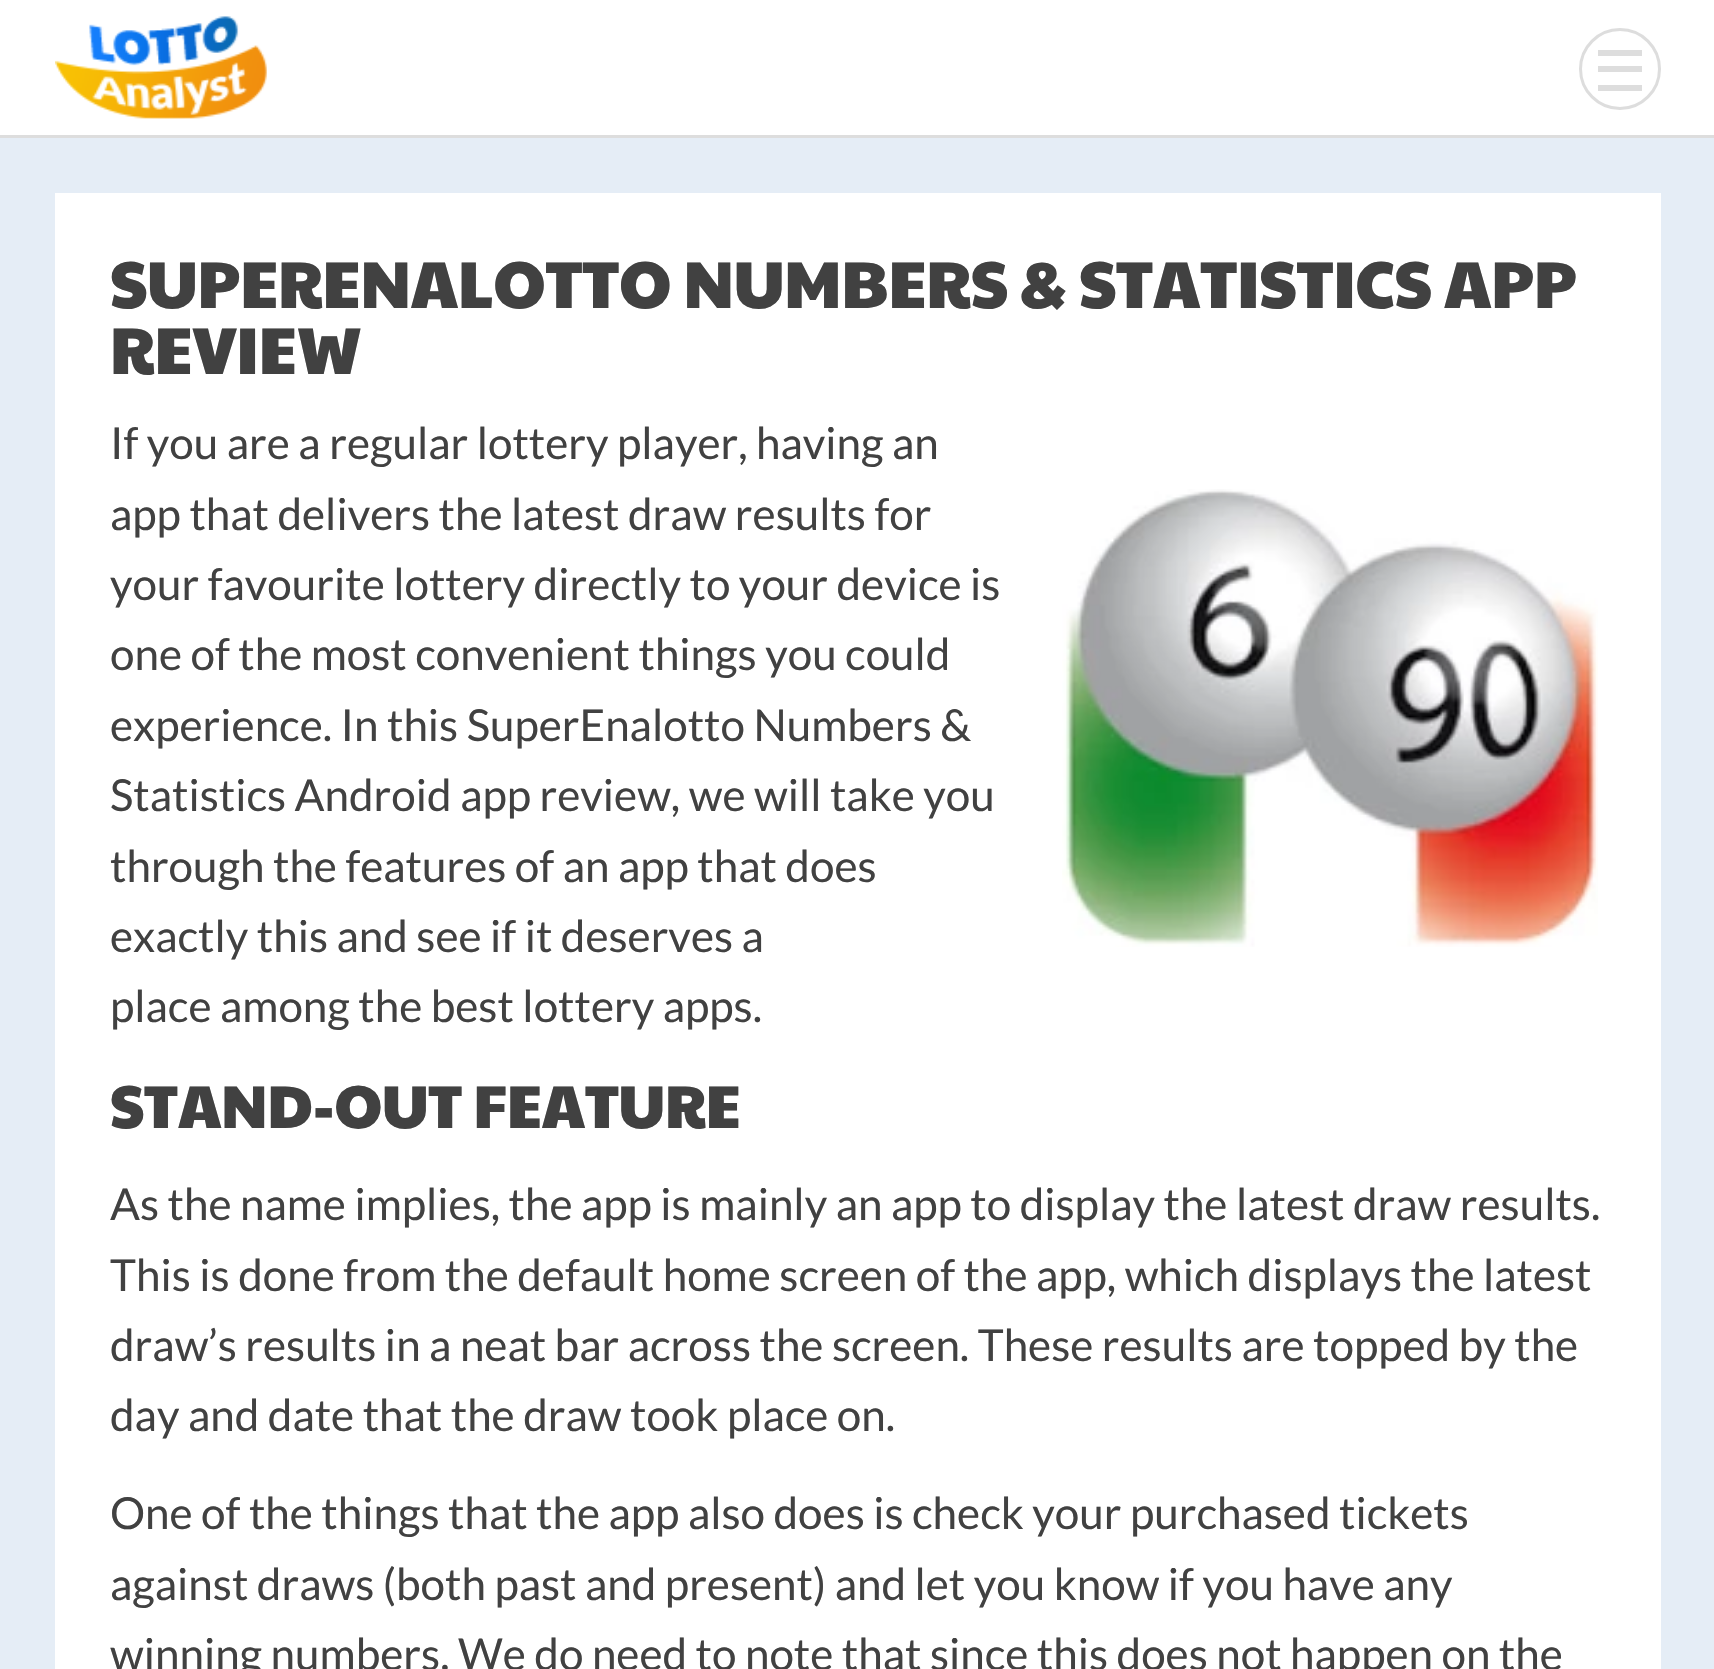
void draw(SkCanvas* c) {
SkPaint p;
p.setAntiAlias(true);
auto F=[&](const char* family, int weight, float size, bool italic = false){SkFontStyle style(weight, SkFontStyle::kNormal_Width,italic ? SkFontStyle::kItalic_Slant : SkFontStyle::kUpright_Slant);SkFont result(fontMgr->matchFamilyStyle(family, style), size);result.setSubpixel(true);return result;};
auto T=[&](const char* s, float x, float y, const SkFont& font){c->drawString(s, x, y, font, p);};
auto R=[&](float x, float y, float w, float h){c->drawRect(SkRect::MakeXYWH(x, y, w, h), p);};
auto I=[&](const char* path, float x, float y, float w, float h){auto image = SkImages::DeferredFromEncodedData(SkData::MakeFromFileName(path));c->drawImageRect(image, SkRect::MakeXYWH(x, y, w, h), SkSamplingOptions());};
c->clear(0xffffffff);
p.setColor(0xffdddddd);
R(0,135,1714,3);
I("1.png",55,16,212,103);
p.setStroke(true);
p.setStrokeWidth(3);
c->drawCircle(1620,69,39.5,p);
p.setStroke(false);
R(1598,50,44,6);
R(1598,66,44,6);
R(1598,85,44,6);
p.setStroke(true);
p.setStrokeWidth(55);
p.setColor(0xffe5edf6);
c->drawRect(SkRect::MakeXYWH(27.5,165.5,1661,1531),p);
auto f1 = F("Paytone One",400,66);
p.setStroke(false);
p.setColor(0xff414141);
T("SUPERENALOTTO NUMBERS & STATISTICS APP",110,308,f1);
T("REVIEW",110,374,f1);
auto f2 = F("Lato",400,44);
T("If you are a regular lottery player, having an",110,459,f2);
T("app that delivers the latest draw results for",110,530,f2);
I("2.png",1062,489,536,458);
T("your favourite lottery directly to your device is",110,600,f2);
T("one of the most convenient things you could",110,670,f2);
T("experience. In this SuperEnalotto Numbers &",110,741,f2);
T("Statistics Android app review, we will take you",110,811,f2);
T("through the features of an app that does",110,882,f2);
T("exactly this and see if it deserves a",110,952,f2);
T("place among the best lottery apps.",110,1022,f2);
auto f3 = F("Paytone One",400,60.5);
T("STAND-OUT FEATURE",110,1128,f3);
T("As the name implies, the app is mainly an app to display the latest draw results.",110,1220,f2);
T("This is done from the default home screen of the app, which displays the latest",110,1291,f2);
T("draw’s results in a neat bar across the screen. These results are topped by the",110,1361,f2);
T("day and date that the draw took place on.",110,1431,f2);
T("One of the things that the app also does is check your purchased tickets",110,1529,f2);
T("against draws (both past and present) and let you know if you have any",110,1600,f2);
T("winning numbers. We do need to note that since this does not happen on the",110,1670,f2);
}
